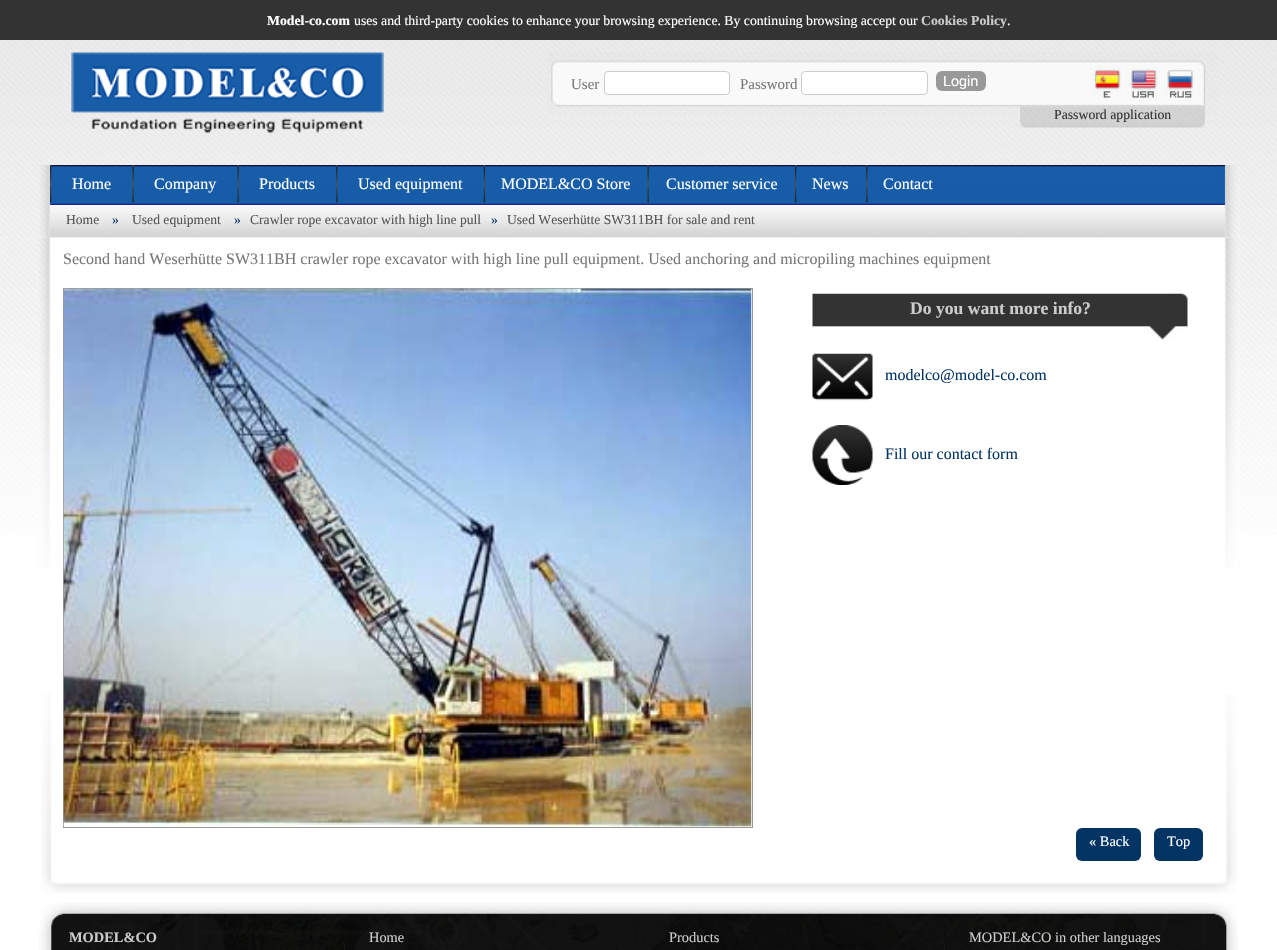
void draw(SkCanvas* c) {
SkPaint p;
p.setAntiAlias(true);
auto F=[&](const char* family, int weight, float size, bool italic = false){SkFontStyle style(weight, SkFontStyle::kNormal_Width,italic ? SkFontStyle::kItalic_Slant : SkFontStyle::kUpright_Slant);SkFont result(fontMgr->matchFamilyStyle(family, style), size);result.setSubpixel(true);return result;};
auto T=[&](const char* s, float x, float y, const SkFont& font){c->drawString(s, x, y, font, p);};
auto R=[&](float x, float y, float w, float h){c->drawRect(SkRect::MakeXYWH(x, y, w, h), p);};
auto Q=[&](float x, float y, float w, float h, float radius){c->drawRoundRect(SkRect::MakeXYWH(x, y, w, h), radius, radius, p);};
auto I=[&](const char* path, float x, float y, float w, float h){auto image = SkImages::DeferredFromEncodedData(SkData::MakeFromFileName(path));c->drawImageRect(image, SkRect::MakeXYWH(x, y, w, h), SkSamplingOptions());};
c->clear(0xffffffff);
I("1.png",0,40,1277,495);
p.setColor(0xff333333);
R(0,0,1277,40);
auto f1 = F("Liberation Serif",700,13.75);
p.setColor(0xffffffff);
T("Model-co.com",267,25,f1);
auto f2 = F("Liberation Serif",400,13.75);
T("uses and third-party cookies to enhance your browsing experience. By continuing browsing accept our",354,25,f2);
p.setColor(0xffcccccc);
T("Cookies Policy",921,25,f1);
p.setColor(0xffffffff);
T(".",1007,25,f2);
I("2.png",71,52,313,81);
I("3.png",547,52,671,63);
auto f3 = F("Liberation Serif",400,15);
p.setColor(0xff777777);
T("User",571,89,f3);
p.setColor(0xffffffff);
c->drawRoundRect(SkRect::MakeXYWH(604.5,71.5,125,23),3.5,3.5,p);
p.setStroke(true);
p.setStrokeWidth(1);
p.setColor(0xffcccccc);
c->drawRoundRect(SkRect::MakeXYWH(604.5,71.5,125,23),3.5,3.5,p);
p.setStroke(false);
p.setColor(0xff777777);
T("Password",740,89,f3);
p.setColor(0xffffffff);
c->drawRoundRect(SkRect::MakeXYWH(801.5,71.5,126,23),3.5,3.5,p);
p.setStroke(true);
p.setColor(0xffcccccc);
c->drawRoundRect(SkRect::MakeXYWH(801.5,71.5,126,23),3.5,3.5,p);
p.setStroke(false);
p.setColor(0xff999999);
Q(936,71,50,20,6);
auto f4 = F("Liberation Sans",400,14.4);
p.setColor(0xffffffff);
T("Login",943,86,f4);
I("4.png",1091,66,31,32);
I("5.png",1127,66,31,35);
I("6.png",1163,68,31,33);
I("7.png",1020,106,185,22);
p.setColor(0xff333333);
T("Password application",1054,119,f2);
I("8.png",39,165,1201,40);
I("9.png",50,165,2,38);
auto f5 = F("Liberation Serif",400,16);
p.setColor(0xffffffff);
T("Home",72,189,f5);
I("10.png",132,165,2,38);
T("Company",154,189,f5);
I("10.png",237,165,2,38);
T("Products",259,189,f5);
I("11.png",336,165,2,38);
T("Used equipment",358,189,f5);
I("12.png",483,165,2,38);
T("MODEL&CO Store",501,189,f5);
I("10.png",647,165,2,38);
T("Customer service",666,189,f5);
I("13.png",795,165,2,38);
T("News",812,189,f5);
I("11.png",866,165,2,38);
T("Contact",883,189,f5);
I("14.png",37,205,1203,33);
auto f6 = F("Liberation Serif",400,13.6);
p.setColor(0xff555555);
T("Home",66,224,f6);
p.setColor(0xff043463);
T("»",112,224,f6);
p.setColor(0xff555555);
T("Used equipment",132,224,f6);
p.setColor(0xff043463);
T("»",234,224,f6);
p.setColor(0xff555555);
T("Crawler rope excavator with high line pull",250,224,f6);
p.setColor(0xff043463);
T("»",491,224,f6);
p.setColor(0xff555555);
T("Used Weserhütte SW311BH for sale and rent",507,224,f6);
I("15.png",38,237,1202,331);
I("16.png",41,694,1196,199);
p.setColor(0xff777777);
T("Second hand Weserhütte SW311BH crawler rope excavator with high line pull equipment. Used anchoring and micropiling machines equipment",63,264,f5);
p.setStroke(true);
p.setColor(0xff999999);
c->drawRect(SkRect::MakeXYWH(63.5,288.5,689,539),p);
I("17.png",63,288,689,539);
I("18.png",812,293,376,47);
auto f7 = F("Liberation Serif",700,17.6);
p.setStroke(false);
p.setColor(0xffcccccc);
T("Do you want more info?",910,314,f7);
I("19.png",812,353,61,48);
p.setColor(0xff043463);
T("modelco@model-co.com",885,380,f5);
I("20.png",812,425,61,60);
T("Fill our contact form",885,459,f5);
Q(1076,828,65,33,6);
auto f8 = F("Liberation Serif",400,14.4);
p.setColor(0xffffffff);
T("« Back",1089,846,f8);
p.setColor(0xff043463);
Q(1154,828,49,33,6);
p.setColor(0xffffffff);
T("Top",1167,846,f8);
I("21.png",39,902,1199,48);
auto f9 = F("Liberation Serif",700,14.4);
p.setColor(0xffcccccc);
T("MODEL&CO",69,942,f9);
I("22.png",344,943,1,7);
T("Home",369,942,f8);
I("23.png",644,933,1,14);
T("Products",669,942,f8);
I("24.png",944,934,1,16);
T("MODEL&CO in other languages",969,942,f8);
}
